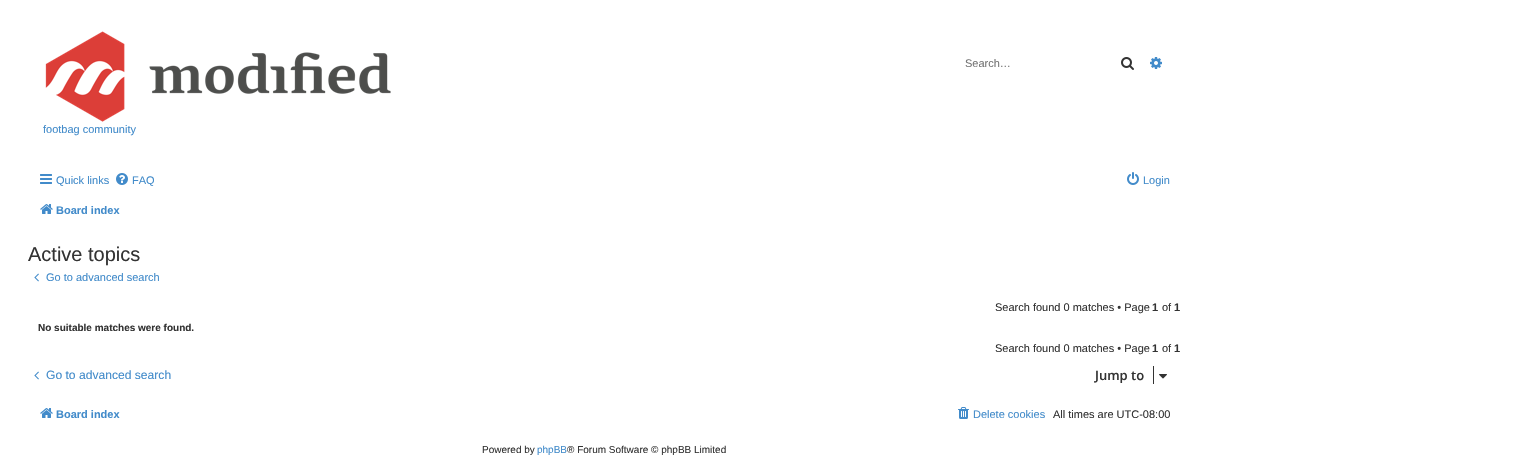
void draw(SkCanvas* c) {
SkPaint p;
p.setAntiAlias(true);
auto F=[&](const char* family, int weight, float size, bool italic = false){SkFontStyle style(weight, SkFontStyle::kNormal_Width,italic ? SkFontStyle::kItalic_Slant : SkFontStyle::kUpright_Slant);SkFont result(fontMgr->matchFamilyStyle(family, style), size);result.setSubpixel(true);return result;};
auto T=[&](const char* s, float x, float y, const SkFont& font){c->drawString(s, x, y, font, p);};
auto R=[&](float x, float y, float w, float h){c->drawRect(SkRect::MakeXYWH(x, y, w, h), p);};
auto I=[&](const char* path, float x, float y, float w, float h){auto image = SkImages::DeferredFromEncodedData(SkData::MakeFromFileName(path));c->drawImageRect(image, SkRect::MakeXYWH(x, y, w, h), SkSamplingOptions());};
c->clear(0xffffffff);
auto f1 = F("Liberation Sans",400,11);
p.setColor(0xff757575);
T("Search…",965,67,f1);
I("1.png",1121,57,13,13);
I("2.png",1150,57,12,12);
I("3.png",45,31,346,91);
p.setColor(0xff428bca);
T("footbag community",43,133,f1);
I("4.png",40,174,12,10);
T("Quick links",56,184,f1);
I("5.png",116,173,12,12);
T("FAQ",132,184,f1);
I("6.png",1127,172,12,13);
T("Login",1143,184,f1);
I("7.png",40,204,13,10);
auto f2 = F("Liberation Sans",700,11);
T("Board index",56,214,f2);
auto f3 = F("Liberation Sans",400,20);
p.setColor(0xff333333);
T("Active topics",28,261,f3);
I("8.png",34,273,5,9);
p.setColor(0xff428bca);
T("Go to advanced search",46,281,f1);
p.setColor(0xff333333);
T("Search found 0 matches • Page",995,311,f1);
T("1",1152,311,f2);
T("of",1162,311,f1);
T("1",1174,311,f2);
auto f4 = F("Liberation Sans",700,10);
T("No suitable matches were found.",38,331,f4);
T("Search found 0 matches • Page",995,352,f1);
T("1",1152,352,f2);
T("of",1162,352,f1);
T("1",1174,352,f2);
I("8.png",34,371,5,9);
auto f5 = F("Liberation Sans",400,12.1);
p.setColor(0xff428bca);
T("Go to advanced search",46,379,f5);
auto f6 = F("Open Sans",600,13);
p.setColor(0xff333333);
T("Jump to",1095,380,f6);
R(1153,366,1,18);
I("9.png",1159,374,8,5);
I("7.png",40,408,13,10);
p.setColor(0xff428bca);
T("Board index",56,418,f2);
I("10.png",958,407,11,12);
T("Delete cookies",973,418,f1);
p.setColor(0xff333333);
T("All times are UTC-08:00",1053,418,f1);
auto f7 = F("Liberation Sans",400,10);
T("Powered by",482,453,f7);
p.setColor(0xff428bca);
T("phpBB",537,453,f7);
p.setColor(0xff333333);
T("® Forum Software © phpBB Limited",567,453,f7);
}
